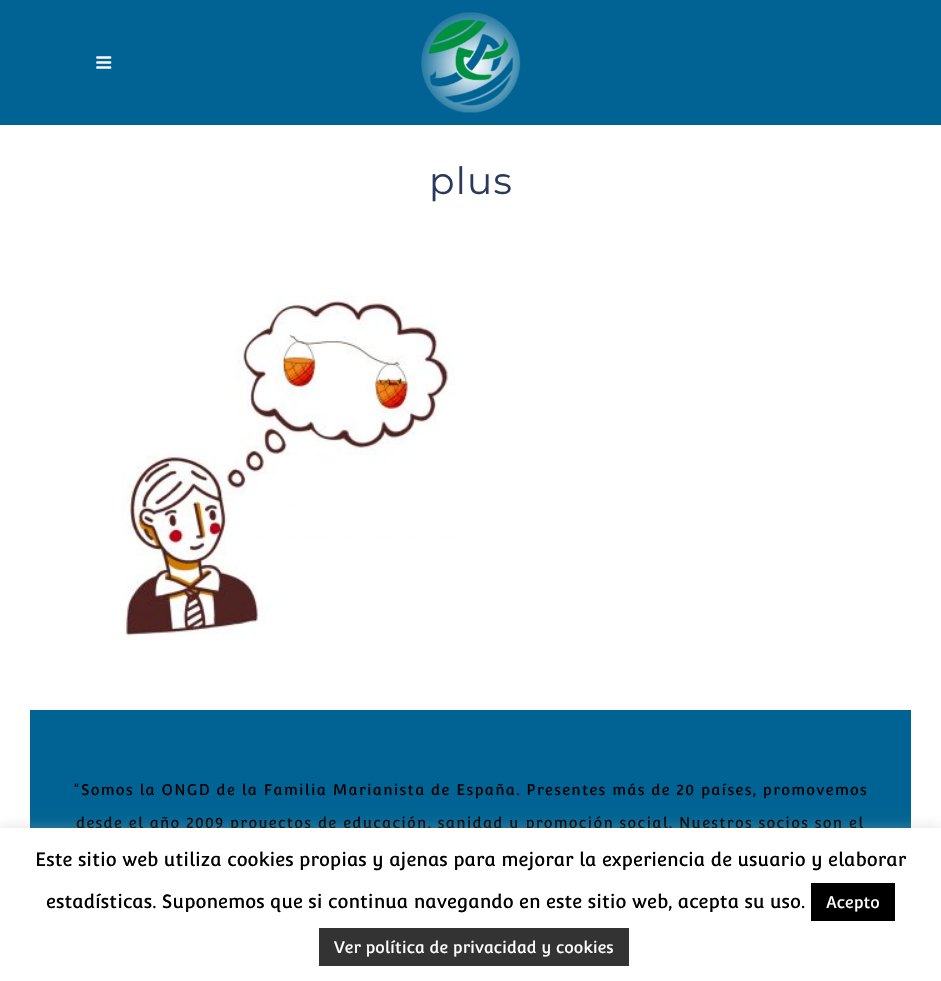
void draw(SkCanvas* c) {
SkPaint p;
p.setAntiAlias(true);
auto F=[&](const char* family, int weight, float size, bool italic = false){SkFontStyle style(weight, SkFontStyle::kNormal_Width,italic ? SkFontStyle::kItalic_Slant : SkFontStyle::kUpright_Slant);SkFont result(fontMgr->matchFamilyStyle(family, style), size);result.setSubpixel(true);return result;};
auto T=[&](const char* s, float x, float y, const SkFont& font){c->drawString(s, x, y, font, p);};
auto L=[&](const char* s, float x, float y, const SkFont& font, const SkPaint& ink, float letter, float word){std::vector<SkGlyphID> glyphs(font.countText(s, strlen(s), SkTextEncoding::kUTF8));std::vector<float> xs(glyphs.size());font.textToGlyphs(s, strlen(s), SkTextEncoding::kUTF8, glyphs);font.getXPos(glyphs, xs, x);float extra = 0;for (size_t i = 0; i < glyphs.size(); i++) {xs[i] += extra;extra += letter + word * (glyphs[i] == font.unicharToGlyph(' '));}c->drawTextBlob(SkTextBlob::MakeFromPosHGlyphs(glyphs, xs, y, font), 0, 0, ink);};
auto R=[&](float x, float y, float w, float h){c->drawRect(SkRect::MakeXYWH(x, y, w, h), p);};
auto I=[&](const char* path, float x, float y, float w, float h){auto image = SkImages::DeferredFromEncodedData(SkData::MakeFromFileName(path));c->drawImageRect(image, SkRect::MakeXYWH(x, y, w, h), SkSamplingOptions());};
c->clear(0xffffffff);
p.setColor(0xff006393);
R(0,0,941,125);
I("1.png",96,56,16,13);
I("2.png",421,12,100,101);
auto f1 = F("Montserrat",400,37.5);
p.setColor(0xff2a3a5a);
L("plus",429,194,f1,p,1.25,0);
I("3.png",121,295,334,341);
p.setColor(0xff006393);
R(30,710,881,118);
auto f2 = F("Convergence",400,15);
p.setColor(0xff000000);
L("\"Somos la ONGD de la Familia Marianista de España. Presentes más de 20 países, promovemos",74,795,f2,p,1.25,0);
L("desde el año 2009 proyectos de educación, sanidad y promoción social. Nuestros socios son el",76,828,f2,p,1.25,0);
p.setColor(0x4dacabab);
p.setMaskFilter(SkMaskFilter::MakeBlur(kNormal_SkBlurStyle, 6));
c->drawRect(SkRect::MakeXYWH(0,826,941,154),p);
p.setMaskFilter(nullptr);
p.setColor(0xffffffff);
R(0,828,941,153);
auto f3 = F("Convergence",400,18.75);
p.setColor(0xff000000);
T("Este sitio web utiliza cookies propias y ajenas para mejorar la experiencia de usuario y elaborar",35,866,f3);
T("estadísticas. Suponemos que si continua navegando en este sitio web, acepta su uso.",46,908,f3);
R(811,883,84,38);
auto f4 = F("Convergence",400,16.25);
p.setColor(0xffffffff);
T("Acepto",826,908,f4);
p.setColor(0xff333333);
R(319,928,310,38);
p.setColor(0xffffffff);
T("Ver política de privacidad y cookies",334,953,f4);
}
